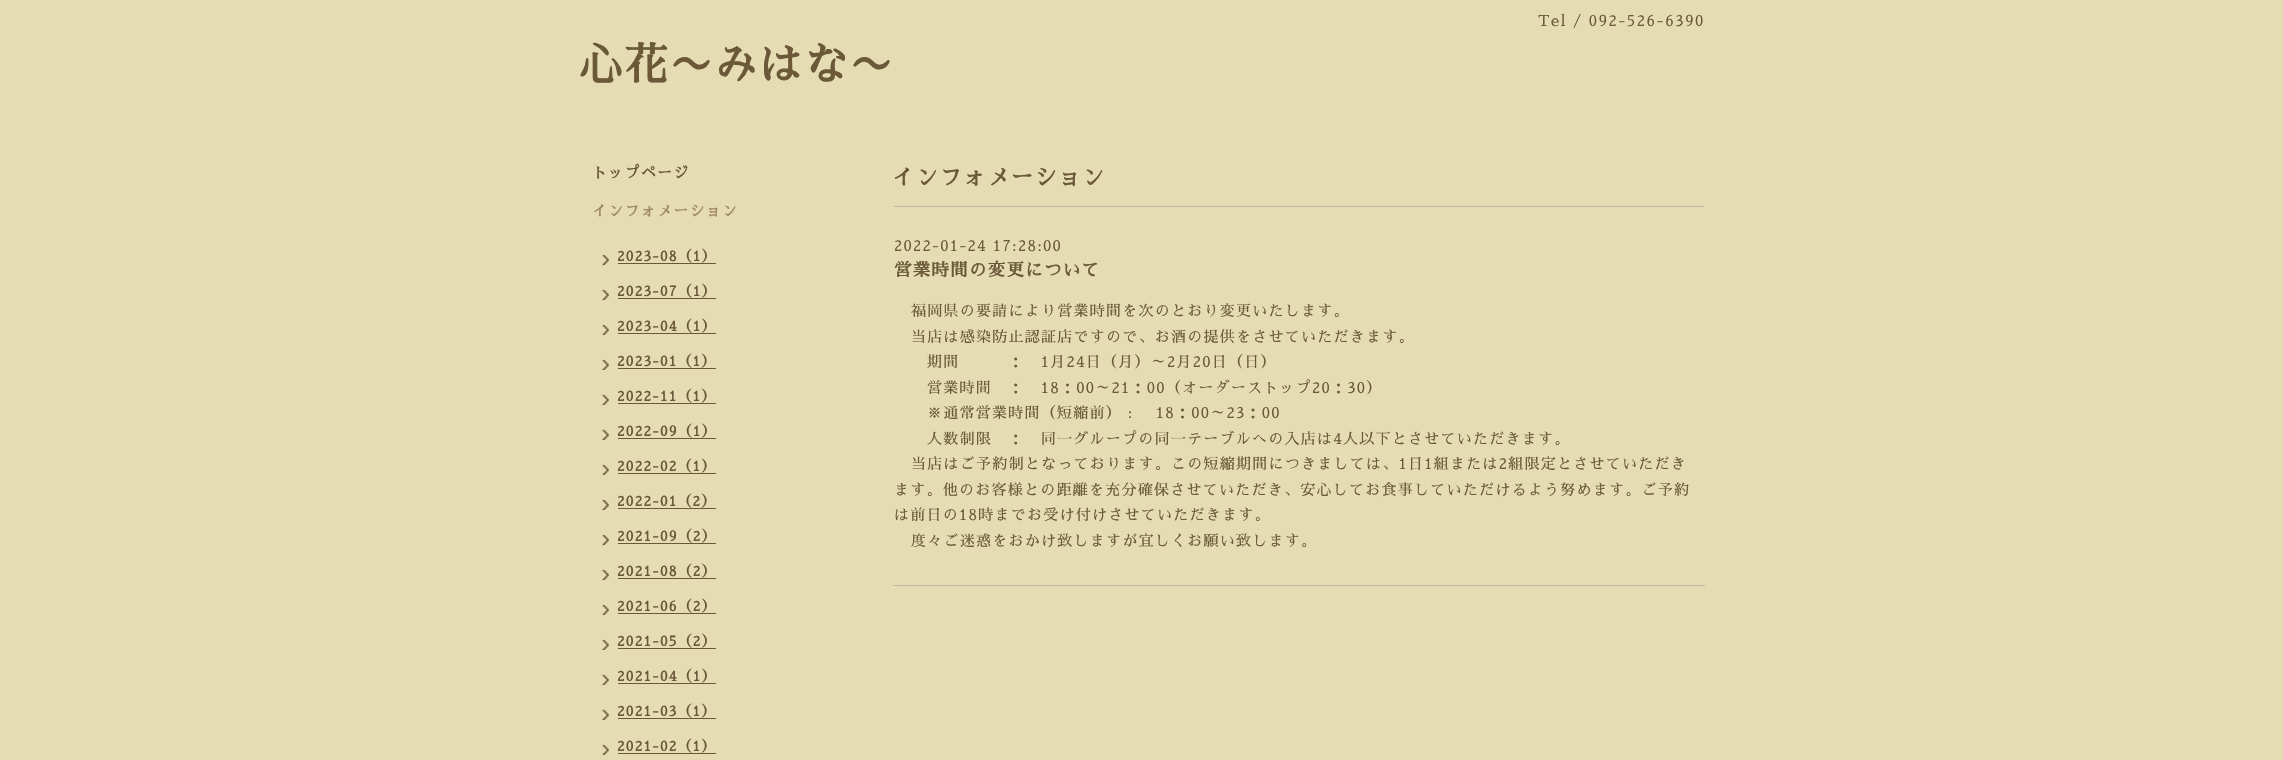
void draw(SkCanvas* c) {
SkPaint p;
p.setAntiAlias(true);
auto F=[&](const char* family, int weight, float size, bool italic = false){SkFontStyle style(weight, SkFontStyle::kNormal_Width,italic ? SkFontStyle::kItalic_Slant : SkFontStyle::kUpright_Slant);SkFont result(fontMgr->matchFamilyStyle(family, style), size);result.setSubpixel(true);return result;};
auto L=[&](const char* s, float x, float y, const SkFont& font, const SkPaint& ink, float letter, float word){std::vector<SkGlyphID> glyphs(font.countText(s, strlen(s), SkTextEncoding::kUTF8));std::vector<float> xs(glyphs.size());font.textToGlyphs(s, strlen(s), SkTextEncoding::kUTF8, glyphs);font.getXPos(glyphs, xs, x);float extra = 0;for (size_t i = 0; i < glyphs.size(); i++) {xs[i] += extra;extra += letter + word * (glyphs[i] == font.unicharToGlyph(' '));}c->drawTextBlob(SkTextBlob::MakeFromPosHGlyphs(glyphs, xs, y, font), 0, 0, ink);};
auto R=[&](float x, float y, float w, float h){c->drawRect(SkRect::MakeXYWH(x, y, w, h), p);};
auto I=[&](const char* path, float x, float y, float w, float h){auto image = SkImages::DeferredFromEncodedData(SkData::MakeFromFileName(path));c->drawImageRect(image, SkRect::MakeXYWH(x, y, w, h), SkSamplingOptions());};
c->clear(0xffe5dcb4);
auto f1 = F("Sawarabi Mincho",400,15);
p.setColor(0xff6a5839);
L("Tel / 092-526-6390",1538,26,f1,p,1.5,0);
auto f2 = F("Sawarabi Mincho",700,43.75);
L("心花〜みはな〜",579,80,f2,p,1.25,0);
auto f3 = F("Sawarabi Mincho",700,15);
L("トップページ",592,178,f3,p,1.25,0);
p.setColor(0xff9f8a65);
L("インフォメーション",592,216,f3,p,1.25,0);
I("1.png",602,254,7,11);
auto f4 = F("Sawarabi Mincho",700,13.75);
p.setColor(0xff6a5839);
L("2023-08（1）",617,261,f4,p,1.25,0);
R(618,263,98,1);
I("2.png",602,289,7,11);
L("2023-07（1）",617,296,f4,p,1.25,0);
R(618,298,98,1);
I("1.png",602,324,7,11);
L("2023-04（1）",617,331,f4,p,1.25,0);
R(618,333,98,1);
I("1.png",602,359,7,11);
L("2023-01（1）",617,366,f4,p,1.25,0);
R(618,368,98,1);
I("1.png",602,394,7,11);
L("2022-11（1）",617,401,f4,p,1.25,0);
R(618,403,98,1);
I("1.png",602,429,7,11);
L("2022-09（1）",617,436,f4,p,1.25,0);
R(618,438,98,1);
I("1.png",602,464,7,11);
L("2022-02（1）",617,471,f4,p,1.25,0);
R(618,473,98,1);
I("1.png",602,499,7,11);
L("2022-01（2）",617,506,f4,p,1.25,0);
R(618,508,98,1);
I("1.png",602,534,7,11);
L("2021-09（2）",617,541,f4,p,1.25,0);
R(618,543,98,1);
I("1.png",602,569,7,11);
L("2021-08（2）",617,576,f4,p,1.25,0);
R(618,578,98,1);
I("1.png",602,604,7,11);
L("2021-06（2）",617,611,f4,p,1.25,0);
R(618,613,98,1);
I("1.png",602,639,7,11);
L("2021-05（2）",617,646,f4,p,1.25,0);
R(618,648,98,1);
I("1.png",602,674,7,11);
L("2021-04（1）",617,681,f4,p,1.25,0);
R(618,683,98,1);
I("1.png",602,709,7,11);
L("2021-03（1）",617,716,f4,p,1.25,0);
R(618,718,98,1);
I("1.png",602,744,7,11);
L("2021-02（1）",617,751,f4,p,1.25,0);
R(618,753,98,1);
auto f5 = F("Sawarabi Mincho",700,22.5);
L("インフォメーション",892,185,f5,p,1.25,0);
p.setColor(0xffbcbca1);
R(893,585,812,1);
R(894,206,810,1);
p.setColor(0xff6a5839);
L("2022-01-24 17:28:00",894,251,f1,p,1.25,0);
auto f6 = F("Sawarabi Mincho",700,17.5);
L("営業時間の変更について",894,276,f6,p,1.25,0);
L("福岡県の要請により営業時間を次のとおり変更いたします。",911,316,f1,p,1.25,0);
L("当店は感染防止認証店ですので、お酒の提供をさせていただきます。",911,342,f1,p,1.25,0);
L("期間　　　：　1月24日（月）～2月20日（日）",927,367,f1,p,1.25,0);
L("営業時間　：　18：00～21：00（オーダーストップ20：30）",927,393,f1,p,1.25,0);
L("※通常営業時間（短縮前） :　 18：00～23：00",927,418,f1,p,1.25,0);
L("人数制限　：　同一グループの同一テーブルへの入店は4人以下とさせていただきます。",927,444,f1,p,1.25,0);
L("当店はご予約制となっております。この短縮期間につきましては、1日1組または2組限定とさせていただき",911,469,f1,p,1.25,0);
L("ます。他のお客様との距離を充分確保させていただき、安心してお食事していただけるよう努めます。ご予約",894,495,f1,p,1.25,0);
L("は前日の18時までお受け付けさせていただきます。",894,520,f1,p,1.25,0);
L("度々ご迷惑をおかけ致しますが宜しくお願い致します。",911,546,f1,p,1.25,0);
}
